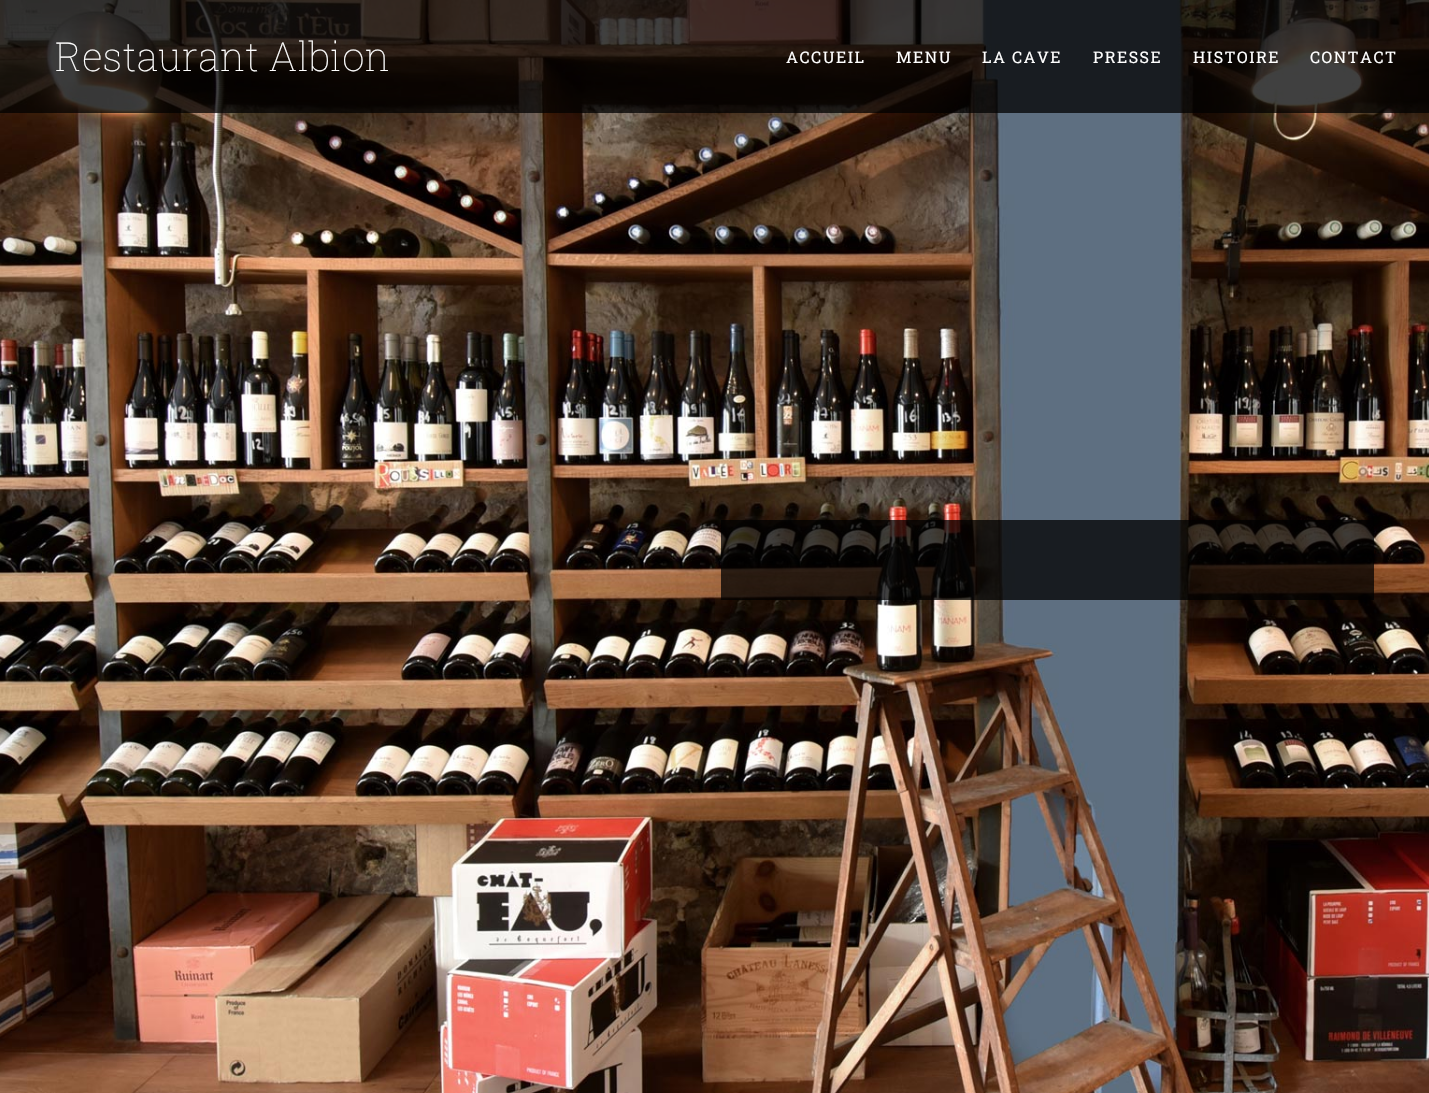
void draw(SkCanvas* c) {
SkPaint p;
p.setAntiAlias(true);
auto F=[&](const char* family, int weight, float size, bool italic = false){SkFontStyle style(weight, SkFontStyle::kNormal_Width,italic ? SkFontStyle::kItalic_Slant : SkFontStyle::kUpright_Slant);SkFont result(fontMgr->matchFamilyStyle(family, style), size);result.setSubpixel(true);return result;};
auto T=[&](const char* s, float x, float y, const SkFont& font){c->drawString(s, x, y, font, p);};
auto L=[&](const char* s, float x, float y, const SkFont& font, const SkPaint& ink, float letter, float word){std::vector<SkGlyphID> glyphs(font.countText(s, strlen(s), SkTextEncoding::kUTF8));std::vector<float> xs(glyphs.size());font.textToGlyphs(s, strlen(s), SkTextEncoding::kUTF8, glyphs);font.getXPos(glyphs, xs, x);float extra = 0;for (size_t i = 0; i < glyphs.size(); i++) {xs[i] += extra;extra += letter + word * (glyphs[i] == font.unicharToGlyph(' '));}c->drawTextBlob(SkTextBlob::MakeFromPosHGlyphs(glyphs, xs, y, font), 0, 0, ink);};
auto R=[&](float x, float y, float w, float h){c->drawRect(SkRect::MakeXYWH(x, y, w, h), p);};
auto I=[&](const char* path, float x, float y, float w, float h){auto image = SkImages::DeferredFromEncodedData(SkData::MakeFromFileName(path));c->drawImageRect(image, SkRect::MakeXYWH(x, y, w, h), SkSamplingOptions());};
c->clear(0xffffffff);
I("1.png",0,0,1429,1093);
p.setColor(0xbf000000);
R(721,520,653,80);
R(0,0,1429,113);
auto f1 = F("Roboto Slab",100,40);
p.setColor(0xffffffff);
T("Restaurant Albion",55,71,f1);
auto f2 = F("Roboto Slab",400,16);
L("ACCUEIL",786,63,f2,p,1.5,0);
L("MENU",896,63,f2,p,1.5,0);
L("LA CAVE",982,63,f2,p,1.5,0);
L("PRESSE",1093,63,f2,p,1.5,0);
L("HISTOIRE",1193,63,f2,p,1.5,0);
L("CONTACT",1310,63,f2,p,1.5,0);
}
